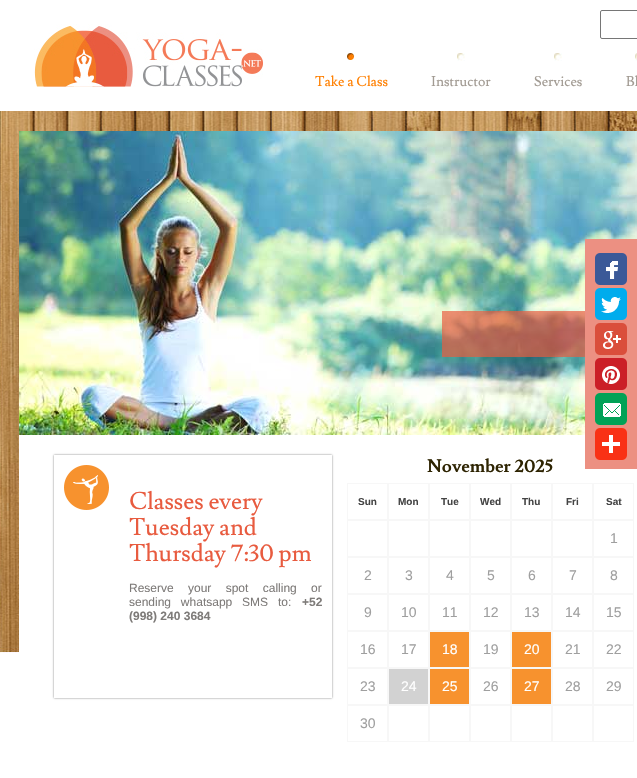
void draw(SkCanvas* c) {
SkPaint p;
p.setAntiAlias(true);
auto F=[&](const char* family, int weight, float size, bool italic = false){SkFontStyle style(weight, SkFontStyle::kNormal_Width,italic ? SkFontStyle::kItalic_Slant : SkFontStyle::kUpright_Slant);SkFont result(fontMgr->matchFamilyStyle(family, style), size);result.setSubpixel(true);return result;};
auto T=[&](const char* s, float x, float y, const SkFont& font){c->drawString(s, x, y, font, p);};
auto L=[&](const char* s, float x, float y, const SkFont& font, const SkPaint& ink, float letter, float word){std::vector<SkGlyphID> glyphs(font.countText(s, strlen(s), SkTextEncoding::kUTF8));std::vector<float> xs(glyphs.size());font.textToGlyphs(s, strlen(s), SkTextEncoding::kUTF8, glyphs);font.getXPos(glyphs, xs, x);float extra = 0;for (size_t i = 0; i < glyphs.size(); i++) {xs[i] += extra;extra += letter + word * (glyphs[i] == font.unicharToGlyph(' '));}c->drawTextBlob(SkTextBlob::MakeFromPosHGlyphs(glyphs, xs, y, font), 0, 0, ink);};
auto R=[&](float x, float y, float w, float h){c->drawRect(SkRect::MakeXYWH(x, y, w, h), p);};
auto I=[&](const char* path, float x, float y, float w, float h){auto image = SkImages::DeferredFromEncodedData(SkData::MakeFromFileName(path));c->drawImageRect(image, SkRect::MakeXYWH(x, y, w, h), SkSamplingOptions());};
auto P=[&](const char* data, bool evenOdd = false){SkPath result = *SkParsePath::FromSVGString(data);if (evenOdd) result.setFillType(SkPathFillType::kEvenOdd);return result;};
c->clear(0xffffffff);
I("1.png",0,111,637,542);
I("2.png",34,24,229,63);
p.setStroke(true);
p.setStrokeWidth(1);
p.setColor(0xff767676);
c->drawRoundRect(SkRect::MakeXYWH(600.5,10.5,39,28),1.5,1.5,p);
I("3.png",347,53,8,7);
auto f1 = F("Lusitana",400,14);
p.setStroke(false);
p.setColor(0xffff7f00);
T("Take a Class",315,86,f1);
I("4.png",457,53,8,8);
p.setColor(0xffa29b93);
T("Instructor",431,86,f1);
I("4.png",554,53,8,8);
T("Services",534,86,f1);
I("5.png",635,53,2,8);
T("Bl",626,86,f1);
p.setColor(0x80000000);
p.setMaskFilter(SkMaskFilter::MakeBlur(kNormal_SkBlurStyle, 15));
c->drawRect(SkRect::MakeXYWH(37,187,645,268),p);
p.setMaskFilter(nullptr);
I("6.png",19,131,618,304);
p.setColor(0xb0e95b3e);
R(442,311,143,46);
p.setColor(0xffffffff);
R(19,435,618,218);
c->save();
c->clipPath(P("M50 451h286v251h-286zm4 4h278v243h-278z",true),true);
p.setColor(0x80000000);
p.setMaskFilter(SkMaskFilter::MakeBlur(kNormal_SkBlurStyle, 1));
c->drawRect(SkRect::MakeXYWH(54,455,278,243),p);
p.setMaskFilter(nullptr);
c->restore();
I("7.png",64,465,45,45);
auto f2 = F("Lusitana",400,24);
p.setColor(0xffe85b3f);
T("Classes every",129,509,f2);
T("Tuesday and",129,535,f2);
T("Thursday 7:30 pm",129,561,f2);
auto f3 = F("Liberation Sans",400,12);
p.setColor(0xff7e7b79);
L("Reserve your spot calling or",129,592,f3,p,0,11);
L("sending whatsapp SMS to:",129,606,f3,p,0,6.5);
auto f4 = F("Liberation Sans",700,12);
T("+52",302,606,f4);
T("(998) 240 3684",129,620,f4);
auto f5 = F("Lusitana",700,18);
p.setColor(0xff2e2402);
T("November 2025",427,472,f5);
p.setStroke(true);
p.setColor(0xfff7f7f7);
c->drawRect(SkRect::MakeXYWH(347.5,483.5,40,36),p);
auto f6 = F("Liberation Sans",700,10);
p.setStroke(false);
p.setColor(0xff444444);
T("Sun",358,505,f6);
p.setStroke(true);
p.setColor(0xfff7f7f7);
c->drawRect(SkRect::MakeXYWH(388.5,483.5,40,36),p);
p.setStroke(false);
p.setColor(0xff444444);
T("Mon",398,505,f6);
p.setStroke(true);
p.setColor(0xfff7f7f7);
c->drawRect(SkRect::MakeXYWH(429.5,483.5,40,36),p);
p.setStroke(false);
p.setColor(0xff444444);
T("Tue",441,505,f6);
p.setStroke(true);
p.setColor(0xfff7f7f7);
c->drawRect(SkRect::MakeXYWH(470.5,483.5,40,36),p);
p.setStroke(false);
p.setColor(0xff444444);
T("Wed",480,505,f6);
p.setStroke(true);
p.setColor(0xfff7f7f7);
c->drawRect(SkRect::MakeXYWH(511.5,483.5,40,36),p);
p.setStroke(false);
p.setColor(0xff444444);
T("Thu",522,505,f6);
p.setStroke(true);
p.setColor(0xfff7f7f7);
c->drawRect(SkRect::MakeXYWH(552.5,483.5,40,36),p);
p.setStroke(false);
p.setColor(0xff444444);
T("Fri",566,505,f6);
p.setStroke(true);
p.setColor(0xfff7f7f7);
c->drawRect(SkRect::MakeXYWH(593.5,483.5,40,36),p);
p.setStroke(false);
p.setColor(0xff444444);
T("Sat",606,505,f6);
p.setStroke(true);
p.setColor(0xfff7f7f7);
c->drawRect(SkRect::MakeXYWH(347.5,520.5,40,36),p);
c->drawRect(SkRect::MakeXYWH(388.5,520.5,40,36),p);
c->drawRect(SkRect::MakeXYWH(429.5,520.5,40,36),p);
c->drawRect(SkRect::MakeXYWH(470.5,520.5,40,36),p);
c->drawRect(SkRect::MakeXYWH(511.5,520.5,40,36),p);
c->drawRect(SkRect::MakeXYWH(552.5,520.5,40,36),p);
c->drawRect(SkRect::MakeXYWH(593.5,520.5,40,36),p);
auto f7 = F("Liberation Sans",400,14);
p.setStroke(false);
p.setColor(0xff9f9f9f);
T("1",610,543,f7);
p.setStroke(true);
p.setColor(0xfff7f7f7);
c->drawRect(SkRect::MakeXYWH(347.5,557.5,40,36),p);
p.setStroke(false);
p.setColor(0xff9f9f9f);
T("2",364,580,f7);
p.setStroke(true);
p.setColor(0xfff7f7f7);
c->drawRect(SkRect::MakeXYWH(388.5,557.5,40,36),p);
p.setStroke(false);
p.setColor(0xff9f9f9f);
T("3",405,580,f7);
p.setStroke(true);
p.setColor(0xfff7f7f7);
c->drawRect(SkRect::MakeXYWH(429.5,557.5,40,36),p);
p.setStroke(false);
p.setColor(0xff9f9f9f);
T("4",446,580,f7);
p.setStroke(true);
p.setColor(0xfff7f7f7);
c->drawRect(SkRect::MakeXYWH(470.5,557.5,40,36),p);
p.setStroke(false);
p.setColor(0xff9f9f9f);
T("5",487,580,f7);
p.setStroke(true);
p.setColor(0xfff7f7f7);
c->drawRect(SkRect::MakeXYWH(511.5,557.5,40,36),p);
p.setStroke(false);
p.setColor(0xff9f9f9f);
T("6",528,580,f7);
p.setStroke(true);
p.setColor(0xfff7f7f7);
c->drawRect(SkRect::MakeXYWH(552.5,557.5,40,36),p);
p.setStroke(false);
p.setColor(0xff9f9f9f);
T("7",569,580,f7);
p.setStroke(true);
p.setColor(0xfff7f7f7);
c->drawRect(SkRect::MakeXYWH(593.5,557.5,40,36),p);
p.setStroke(false);
p.setColor(0xff9f9f9f);
T("8",610,580,f7);
p.setStroke(true);
p.setColor(0xfff7f7f7);
c->drawRect(SkRect::MakeXYWH(347.5,594.5,40,36),p);
p.setStroke(false);
p.setColor(0xff9f9f9f);
T("9",364,617,f7);
p.setStroke(true);
p.setColor(0xfff7f7f7);
c->drawRect(SkRect::MakeXYWH(388.5,594.5,40,36),p);
p.setStroke(false);
p.setColor(0xff9f9f9f);
T("10",401,617,f7);
p.setStroke(true);
p.setColor(0xfff7f7f7);
c->drawRect(SkRect::MakeXYWH(429.5,594.5,40,36),p);
p.setStroke(false);
p.setColor(0xff9f9f9f);
T("11",442,617,f7);
p.setStroke(true);
p.setColor(0xfff7f7f7);
c->drawRect(SkRect::MakeXYWH(470.5,594.5,40,36),p);
p.setStroke(false);
p.setColor(0xff9f9f9f);
T("12",483,617,f7);
p.setStroke(true);
p.setColor(0xfff7f7f7);
c->drawRect(SkRect::MakeXYWH(511.5,594.5,40,36),p);
p.setStroke(false);
p.setColor(0xff9f9f9f);
T("13",524,617,f7);
p.setStroke(true);
p.setColor(0xfff7f7f7);
c->drawRect(SkRect::MakeXYWH(552.5,594.5,40,36),p);
p.setStroke(false);
p.setColor(0xff9f9f9f);
T("14",565,617,f7);
p.setStroke(true);
p.setColor(0xfff7f7f7);
c->drawRect(SkRect::MakeXYWH(593.5,594.5,40,36),p);
p.setStroke(false);
p.setColor(0xff9f9f9f);
T("15",606,617,f7);
p.setStroke(true);
p.setColor(0xfff7f7f7);
c->drawRect(SkRect::MakeXYWH(347.5,631.5,40,36),p);
p.setStroke(false);
p.setColor(0xff9f9f9f);
T("16",360,654,f7);
p.setStroke(true);
p.setColor(0xfff7f7f7);
c->drawRect(SkRect::MakeXYWH(388.5,631.5,40,36),p);
p.setStroke(false);
p.setColor(0xff9f9f9f);
T("17",401,654,f7);
p.setColor(0xfff7922e);
c->drawRect(SkRect::MakeXYWH(429.5,631.5,40,36),p);
p.setStroke(true);
p.setColor(0xfff7f7f7);
c->drawRect(SkRect::MakeXYWH(429.5,631.5,40,36),p);
p.setStroke(false);
p.setColor(0xffffffff);
T("18",442,654,f7);
p.setStroke(true);
p.setColor(0xfff7f7f7);
c->drawRect(SkRect::MakeXYWH(470.5,631.5,40,36),p);
p.setStroke(false);
p.setColor(0xff9f9f9f);
T("19",483,654,f7);
p.setColor(0xfff7922e);
c->drawRect(SkRect::MakeXYWH(511.5,631.5,40,36),p);
p.setStroke(true);
p.setColor(0xfff7f7f7);
c->drawRect(SkRect::MakeXYWH(511.5,631.5,40,36),p);
p.setStroke(false);
p.setColor(0xffffffff);
T("20",524,654,f7);
p.setStroke(true);
p.setColor(0xfff7f7f7);
c->drawRect(SkRect::MakeXYWH(552.5,631.5,40,36),p);
p.setStroke(false);
p.setColor(0xff9f9f9f);
T("21",565,654,f7);
p.setStroke(true);
p.setColor(0xfff7f7f7);
c->drawRect(SkRect::MakeXYWH(593.5,631.5,40,36),p);
p.setStroke(false);
p.setColor(0xff9f9f9f);
T("22",606,654,f7);
p.setStroke(true);
p.setColor(0xfff7f7f7);
c->drawRect(SkRect::MakeXYWH(347.5,668.5,40,36),p);
p.setStroke(false);
p.setColor(0xff9f9f9f);
T("23",360,691,f7);
p.setColor(0xffd2d2d2);
c->drawRect(SkRect::MakeXYWH(388.5,668.5,40,36),p);
p.setStroke(true);
p.setColor(0xfff7f7f7);
c->drawRect(SkRect::MakeXYWH(388.5,668.5,40,36),p);
p.setStroke(false);
p.setColor(0xffffffff);
T("24",401,691,f7);
p.setColor(0xfff7922e);
c->drawRect(SkRect::MakeXYWH(429.5,668.5,40,36),p);
p.setStroke(true);
p.setColor(0xfff7f7f7);
c->drawRect(SkRect::MakeXYWH(429.5,668.5,40,36),p);
p.setStroke(false);
p.setColor(0xffffffff);
T("25",442,691,f7);
p.setStroke(true);
p.setColor(0xfff7f7f7);
c->drawRect(SkRect::MakeXYWH(470.5,668.5,40,36),p);
p.setStroke(false);
p.setColor(0xff9f9f9f);
T("26",483,691,f7);
p.setColor(0xfff7922e);
c->drawRect(SkRect::MakeXYWH(511.5,668.5,40,36),p);
p.setStroke(true);
p.setColor(0xfff7f7f7);
c->drawRect(SkRect::MakeXYWH(511.5,668.5,40,36),p);
p.setStroke(false);
p.setColor(0xffffffff);
T("27",524,691,f7);
p.setStroke(true);
p.setColor(0xfff7f7f7);
c->drawRect(SkRect::MakeXYWH(552.5,668.5,40,36),p);
p.setStroke(false);
p.setColor(0xff9f9f9f);
T("28",565,691,f7);
p.setStroke(true);
p.setColor(0xfff7f7f7);
c->drawRect(SkRect::MakeXYWH(593.5,668.5,40,36),p);
p.setStroke(false);
p.setColor(0xff9f9f9f);
T("29",606,691,f7);
p.setStroke(true);
p.setColor(0xfff7f7f7);
c->drawRect(SkRect::MakeXYWH(347.5,705.5,40,36),p);
p.setStroke(false);
p.setColor(0xff9f9f9f);
T("30",360,728,f7);
p.setStroke(true);
p.setColor(0xfff7f7f7);
c->drawRect(SkRect::MakeXYWH(388.5,705.5,40,36),p);
c->drawRect(SkRect::MakeXYWH(429.5,705.5,40,36),p);
c->drawRect(SkRect::MakeXYWH(470.5,705.5,40,36),p);
c->drawRect(SkRect::MakeXYWH(511.5,705.5,40,36),p);
c->drawRect(SkRect::MakeXYWH(552.5,705.5,40,36),p);
c->drawRect(SkRect::MakeXYWH(593.5,705.5,40,36),p);
p.setStroke(false);
p.setColor(0xffec9082);
R(585,239,52,230);
I("8.png",595,253,32,32);
I("9.png",595,288,32,32);
I("10.png",595,323,32,32);
I("11.png",595,358,32,32);
I("12.png",595,393,32,32);
I("13.png",595,428,32,32);
}
